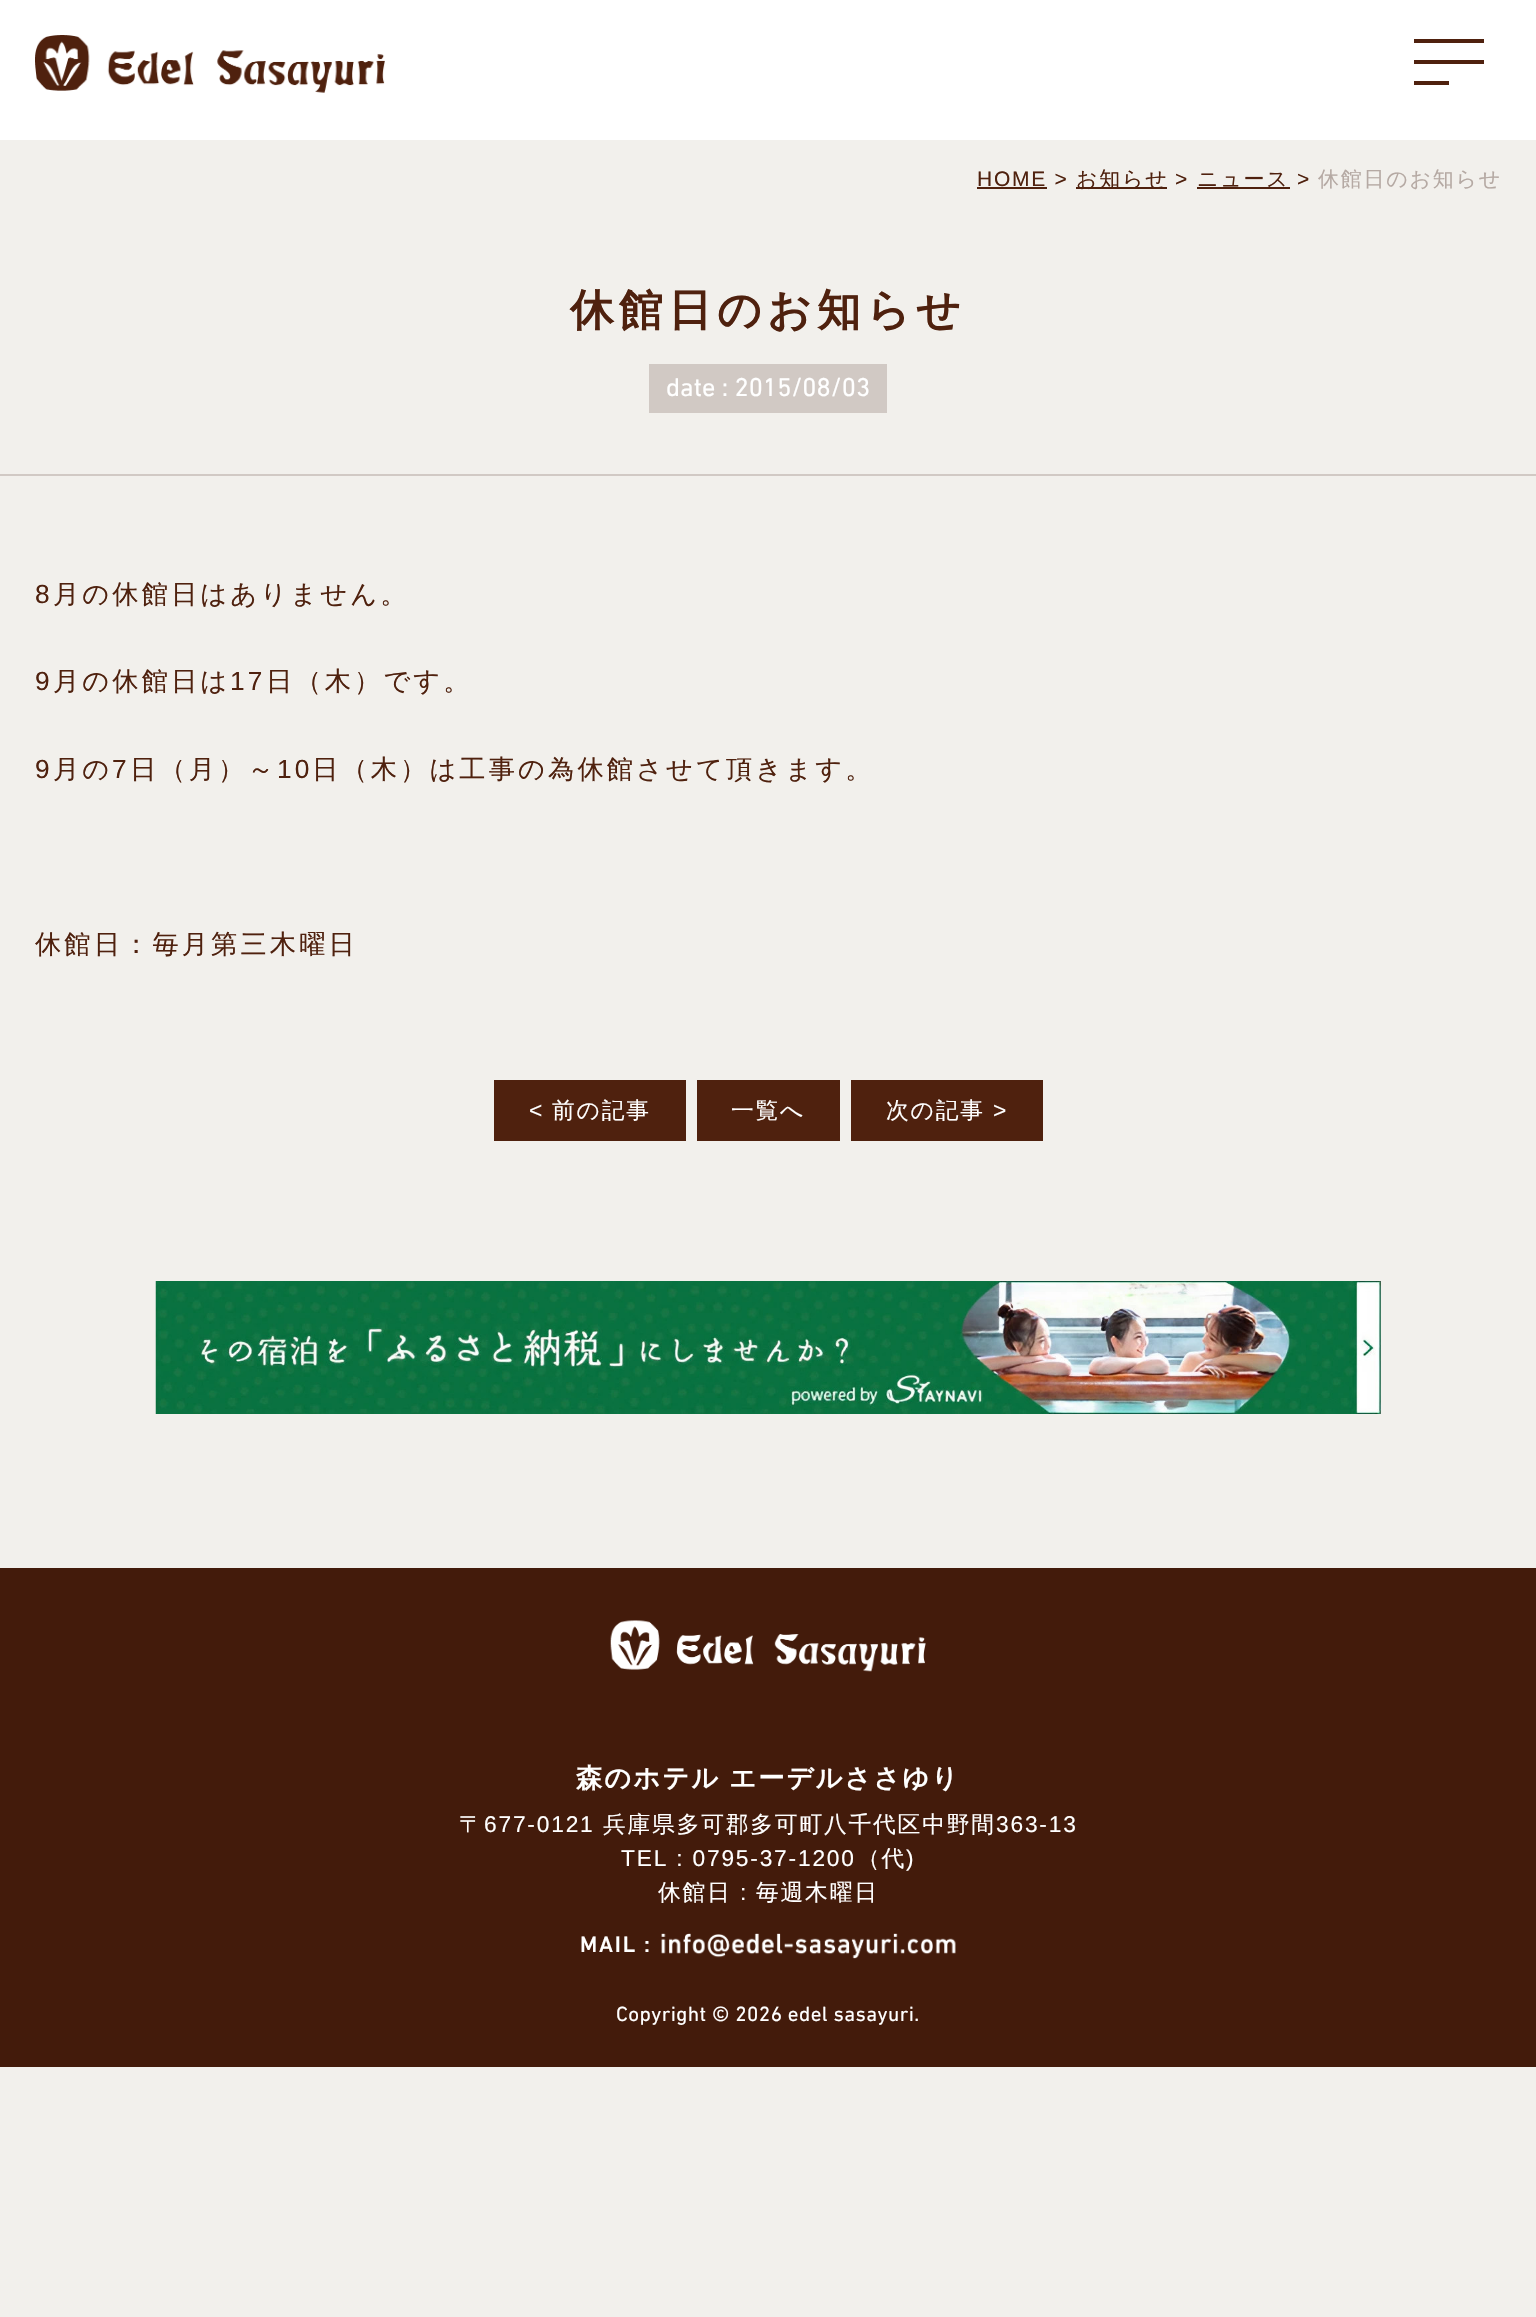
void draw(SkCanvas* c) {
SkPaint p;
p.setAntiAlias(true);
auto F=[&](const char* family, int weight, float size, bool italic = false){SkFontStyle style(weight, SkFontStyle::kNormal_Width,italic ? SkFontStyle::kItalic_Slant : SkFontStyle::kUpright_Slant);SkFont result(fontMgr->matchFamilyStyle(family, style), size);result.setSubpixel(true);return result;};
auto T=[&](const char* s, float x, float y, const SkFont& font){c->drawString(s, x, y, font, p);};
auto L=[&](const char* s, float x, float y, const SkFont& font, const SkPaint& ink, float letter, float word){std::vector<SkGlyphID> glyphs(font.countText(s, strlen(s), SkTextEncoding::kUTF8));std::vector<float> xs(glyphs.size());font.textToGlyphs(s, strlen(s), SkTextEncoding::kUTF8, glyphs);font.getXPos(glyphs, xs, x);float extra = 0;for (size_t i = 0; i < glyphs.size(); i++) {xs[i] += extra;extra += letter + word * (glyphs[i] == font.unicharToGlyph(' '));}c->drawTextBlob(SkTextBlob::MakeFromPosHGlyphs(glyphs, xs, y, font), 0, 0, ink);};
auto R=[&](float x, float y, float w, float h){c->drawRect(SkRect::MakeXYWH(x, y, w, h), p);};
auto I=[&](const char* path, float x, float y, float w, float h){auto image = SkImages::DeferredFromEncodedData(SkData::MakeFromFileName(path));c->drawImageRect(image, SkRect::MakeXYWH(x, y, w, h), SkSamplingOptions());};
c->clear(0xfff2f0ec);
p.setColor(0xffffffff);
R(0,0,1536,140);
I("1.png",35,35,350,58);
p.setColor(0xff4f210e);
R(1414,60,70,4);
R(1414,39,70,4);
R(1414,81,35,4);
auto f1 = F("Liberation Sans",400,21);
L("HOME >",977,186,f1,p,1.75,0);
R(977,187,70,2);
R(1076,187,91,2);
auto f2 = F("WenQuanYi Zen Hei",500,21);
L("お知らせ",1076,186,f2,p,1.75,0);
L(">",1175,186,f1,p,1.75,0);
R(1197,187,93,2);
L("ニュース",1197,186,f2,p,1.75,0);
L(">",1297,186,f1,p,1.75,0);
p.setColor(0xffb5a9a3);
L("休館日のお知らせ",1318,186,f2,p,1.75,0);
p.setColor(0xffd1c9c4);
R(0,474,1536,2);
auto f3 = F("WenQuanYi Zen Hei",700,43.75);
p.setColor(0xff4f210e);
L("休館日のお知らせ",570,325,f3,p,5.25,0);
p.setColor(0xffd1c9c4);
R(649,364,238,49);
auto f4 = F("DIN Next",400,26.25);
p.setColor(0xffffffff);
T("date : 2015/08/03",666,396,f4);
auto f5 = F("Liberation Sans",400,26.25);
p.setColor(0xff4f210e);
L("8",35,603,f5,p,3.1,0);
auto f6 = F("WenQuanYi Zen Hei",500,26.25);
L("月の休館日はありません。",53,603,f6,p,3.1,0);
L("9",35,690,f5,p,3.1,0);
L("月の休館日は",53,690,f6,p,3.1,0);
L("17",230,690,f5,p,3.1,0);
L("日（木）です。",266,690,f6,p,3.1,0);
L("9",35,778,f5,p,3.1,0);
L("月の",53,778,f6,p,3.1,0);
L("7",112,778,f5,p,3.1,0);
L("日（月）～",130,778,f6,p,3.1,0);
L("10",277,778,f5,p,3.1,0);
L("日（木）は工事の為休館させて頂きます。",312,778,f6,p,3.1,0);
L("休館日：毎月第三木曜日",35,953,f6,p,3.1,0);
R(494,1080,192,61);
auto f7 = F("Liberation Sans",400,22.75);
p.setColor(0xffffffff);
L("<",529,1118,f7,p,1.8,0);
auto f8 = F("WenQuanYi Zen Hei",500,22.75);
L("前の記事",552,1118,f8,p,1.8,0);
p.setColor(0xff4f210e);
R(697,1080,143,61);
p.setColor(0xffffffff);
L("一覧へ",731,1118,f8,p,1.8,0);
p.setColor(0xff4f210e);
R(851,1080,192,61);
p.setColor(0xffffffff);
L("次の記事",886,1118,f8,p,1.8,0);
L(">",993,1118,f7,p,1.8,0);
I("2.png",155,1281,1226,133);
p.setColor(0xff431b0b);
R(0,1568,1536,499);
I("3.png",610,1620,316,52);
auto f9 = F("WenQuanYi Zen Hei",700,26.25);
p.setColor(0xffffffff);
L("森のホテル エーデルささゆり",576,1787,f9,p,2.1,-1);
L("〒",459,1832,f8,p,1.8,0);
L("677-0121",484,1832,f7,p,1.8,0);
L("兵庫県多可郡多可町八千代区中野間",603,1832,f8,p,1.8,0);
L("363-13",996,1832,f7,p,1.8,0);
L("TEL : 0795-37-1200",621,1866,f7,p,1.8,0);
L("（代",857,1866,f8,p,1.8,0);
L(")",906,1866,f7,p,1.8,0);
L("休館日",658,1900,f8,p,1.8,0);
L(":",740,1900,f7,p,1.8,0);
L("毎週木曜日",756,1900,f8,p,1.8,0);
auto f10 = F("DIN Next",500,22.75);
L("MAIL :",580,1952,f10,p,1.8,0);
I("4.png",661,1933,295,26);
auto f11 = F("DIN Next",400,21);
L("Copyright © 2026 edel sasayuri.",616,2021,f11,p,.4,0);
}
